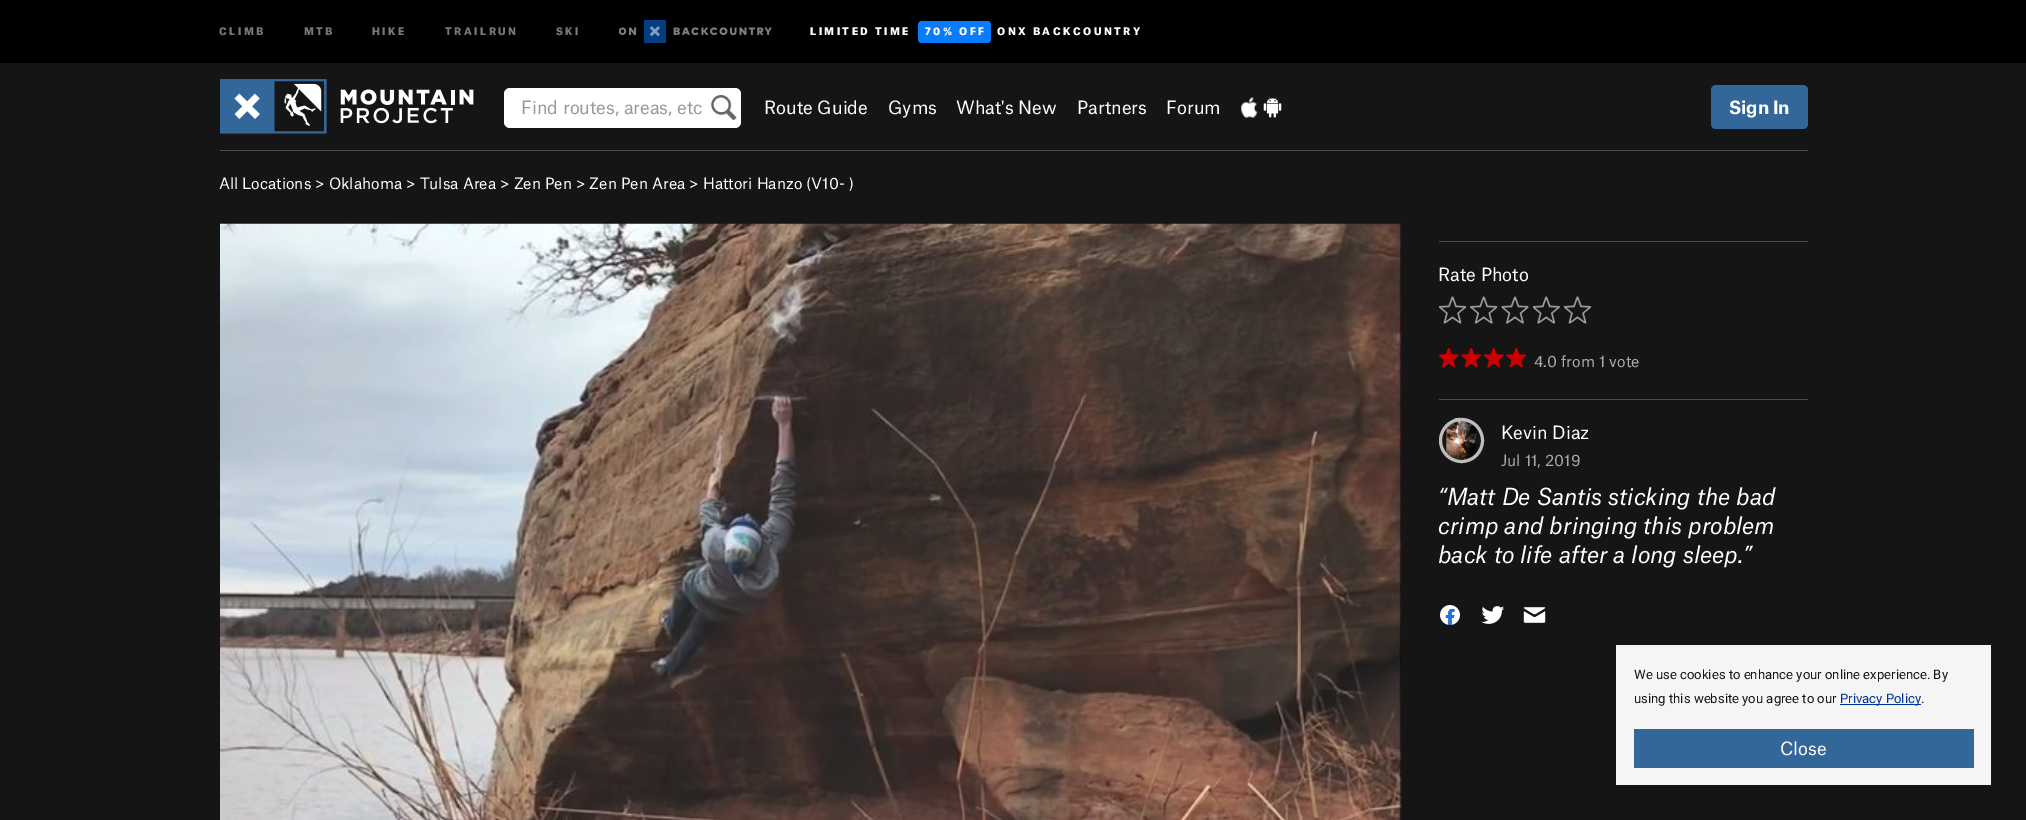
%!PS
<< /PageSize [2026 820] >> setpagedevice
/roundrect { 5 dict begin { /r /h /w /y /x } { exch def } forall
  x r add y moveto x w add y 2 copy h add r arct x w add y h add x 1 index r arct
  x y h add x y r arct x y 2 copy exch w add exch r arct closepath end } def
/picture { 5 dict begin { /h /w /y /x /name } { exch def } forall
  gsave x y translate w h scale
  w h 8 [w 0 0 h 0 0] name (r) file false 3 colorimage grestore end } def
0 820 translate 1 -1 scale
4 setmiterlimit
0.082 setgray
0 0 2026 820 rectfill
0 setgray
0 0 2026 63 rectfill
/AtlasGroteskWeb-Black [10 0 0 -10 0 0] selectfont
0.467 setgray
219 35 moveto 2.5 0 (CLIMB) ashow
304 35 moveto 2.5 0 (MTB) ashow
372 35 moveto 2.5 0 (HIKE) ashow
445 35 moveto 2.5 0 (TRAILRUN) ashow
556 35 moveto 2.5 0 (SKI) ashow
(img1.rgb) 619 20 153 23 picture
1 setgray
810 35 moveto 2.5 0 (LIMITED TIME) ashow
0.031 0.482 1 setrgbcolor
918 21 73 22 4 roundrect fill
1 setgray
925 35 moveto 2.5 0 (70% OFF) ashow
997 35 moveto 2.5 0 (ONX BACKCOUNTRY) ashow
(img2.rgb) 220 79 254 55 picture
504 88 237 40 6 roundrect fill
(img3.rgb) 711 95 26 25 picture
/AtlasGroteskWeb-Regular [17.5 0 0 -17.5 0 0] selectfont
0.6 setgray
521 114 moveto (Find routes, areas, etc) show
1 setgray
764 114 moveto (Route Guide) show
888 114 moveto (Gyms) show
956 114 moveto (What's New) show
1077 114 moveto (Partners) show
1166 114 moveto (Forum) show
(img4.rgb) 1241 97 17 21 picture
(img5.rgb) 1263 97 19 21 picture
0.2 0.404 0.6 setrgbcolor
1711 85 97 44 5 roundrect fill
/AtlasGroteskWeb-Bold [17.5 0 0 -17.5 0 0] selectfont
1 setgray
1729 114 moveto (Sign In) show
0.306 0.302 0.286 setrgbcolor
220 150 1588 1 rectfill
/AtlasGroteskWeb-Regular [15 0 0 -15 0 0] selectfont
1 setgray
219 189 moveto (All Locations > Oklahoma > Tulsa Area > Zen Pen > Zen Pen Area > Hattori Hanzo \(V10- \)) show
(img6.rgb) 220 223 1182 597 picture
0.306 0.302 0.286 setrgbcolor
1439 241 369 1 rectfill
/AtlasGroteskWeb-Regular [17.5 0 0 -17.5 0 0] selectfont
1 setgray
1438 281 moveto (Rate Photo) show
(img7.rgb) 1439 296 27 28 picture
(img8.rgb) 1470 296 28 28 picture
(img9.rgb) 1501 296 28 28 picture
(img10.rgb) 1533 296 27 28 picture
(img7.rgb) 1564 296 27 28 picture
(img11.rgb) 1439 348 20 20 picture
(img12.rgb) 1461 348 20 20 picture
(img11.rgb) 1484 348 20 20 picture
(img12.rgb) 1506 348 20 20 picture
/AtlasGroteskWeb-Regular [15 0 0 -15 0 0] selectfont
0.675 setgray
1534 367 moveto (4.0 from 1 vote) show
0.306 0.302 0.286 setrgbcolor
1439 399 369 1 rectfill
(img13.rgb) 1446 417 31 45 picture
0.741 setgray
3 setlinewidth
newpath 1461.5 440.5 21 0 360 arc closepath stroke
/AtlasGroteskWeb-Regular [17.5 0 0 -17.5 0 0] selectfont
1 setgray
1501 439 moveto (Kevin Diaz) show
/AtlasGroteskWeb-Regular [15 0 0 -15 0 0] selectfont
0.675 setgray
1501 466 moveto (Jul 11, 2019) show
/AtlasGroteskWeb-Italic [22.5 0 0 -22.5 0 0] selectfont
1 setgray
1438 505 moveto (“Matt De Santis sticking the bad) show
1438 534 moveto (crimp and bringing this problem) show
1438 563 moveto (back to life after a long sleep.”) show
(img14.rgb) 1440 605 20 20 picture
(img15.rgb) 1481 606 23 18 picture
(img16.rgb) 1523 607 23 16 picture
0.961 setgray
1616 645 375 140 rectfill
/Roboto-Regular [13.1 0 0 -13.1 0 0] selectfont
0.082 setgray
1634 679 moveto (We use cookies to enhance your online experience. By) show
1634 703 moveto (using this website you agree to our) show
0 0.2 0.6 setrgbcolor
1840 704 81 1 rectfill
1840 703 moveto (Privacy Policy) show
0.082 setgray
1921 703 moveto (.) show
0.2 0.404 0.6 setrgbcolor
1634 729 340 39 rectfill
/AtlasGroteskWeb-Regular [17.5 0 0 -17.5 0 0] selectfont
1 setgray
1780 755 moveto (Close) show
showpage
